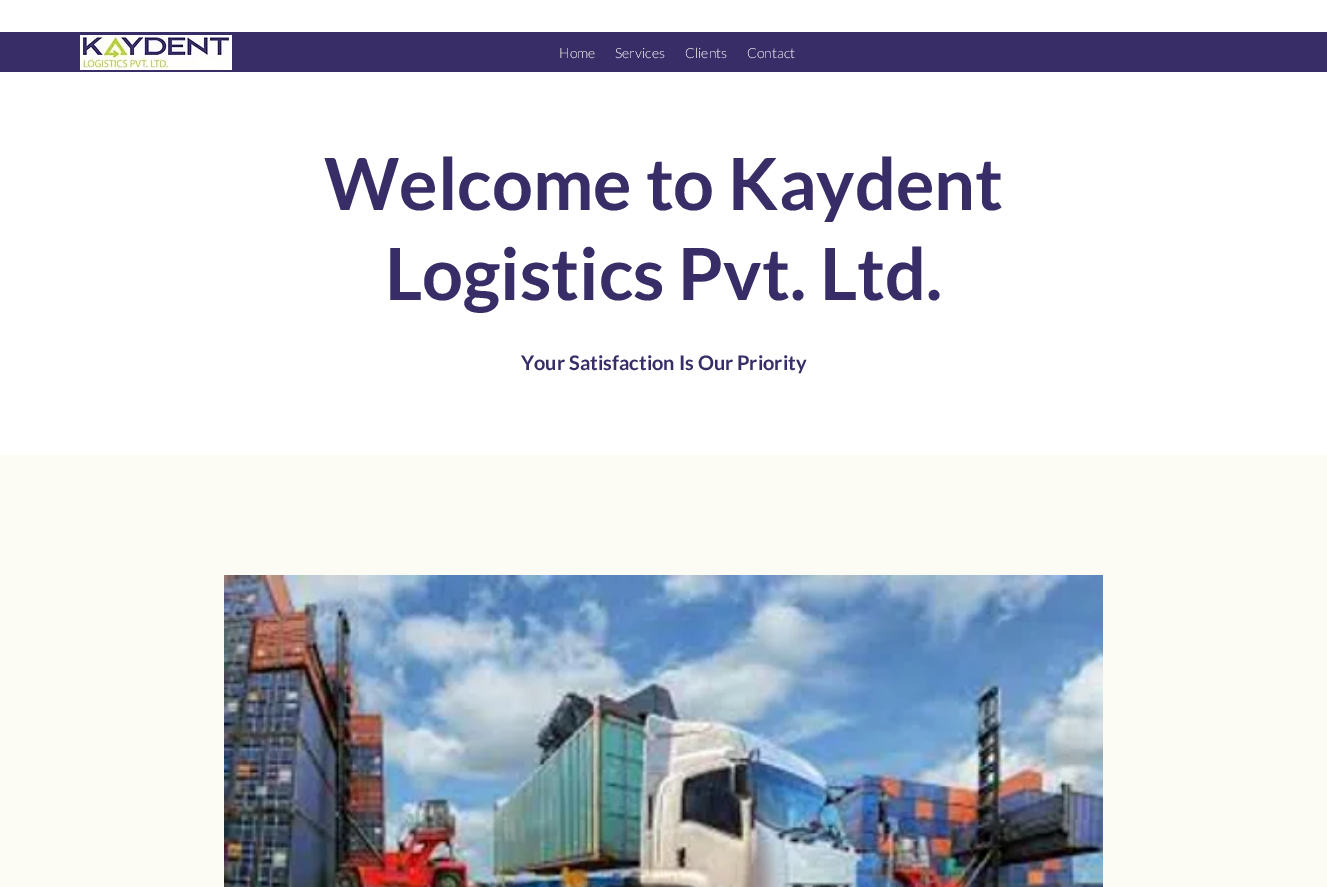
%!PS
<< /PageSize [1327 887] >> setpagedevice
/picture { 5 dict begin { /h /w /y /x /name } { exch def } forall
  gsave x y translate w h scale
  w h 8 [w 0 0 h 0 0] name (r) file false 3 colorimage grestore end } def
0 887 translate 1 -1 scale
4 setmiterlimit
1 setgray
0 0 1327 887 rectfill
0.224 0.176 0.404 setrgbcolor
0 32 1327 40 rectfill
(img1.rgb) 80 35 152 35 picture
/Lato-Light [14 0 0 -14 0 0] selectfont
0.988 0.988 0.957 setrgbcolor
559 58 moveto (Home) show
1 setgray
615 58 moveto (Services) show
685 58 moveto (Clients) show
747 58 moveto (Contact) show
/Lato-Bold [72 0 0 -72 0 0] selectfont
0.224 0.176 0.404 setrgbcolor
324 210 moveto (Welcome to Kaydent) show
385 300 moveto (Logistics Pvt. Ltd.) show
/Lato-Bold [20 0 0 -20 0 0] selectfont
521 370 moveto (Your Satisfaction Is Our Priority) show
0.988 0.988 0.957 setrgbcolor
0 455 1327 432 rectfill
(img2.rgb) 224 575 879 312 picture
showpage
